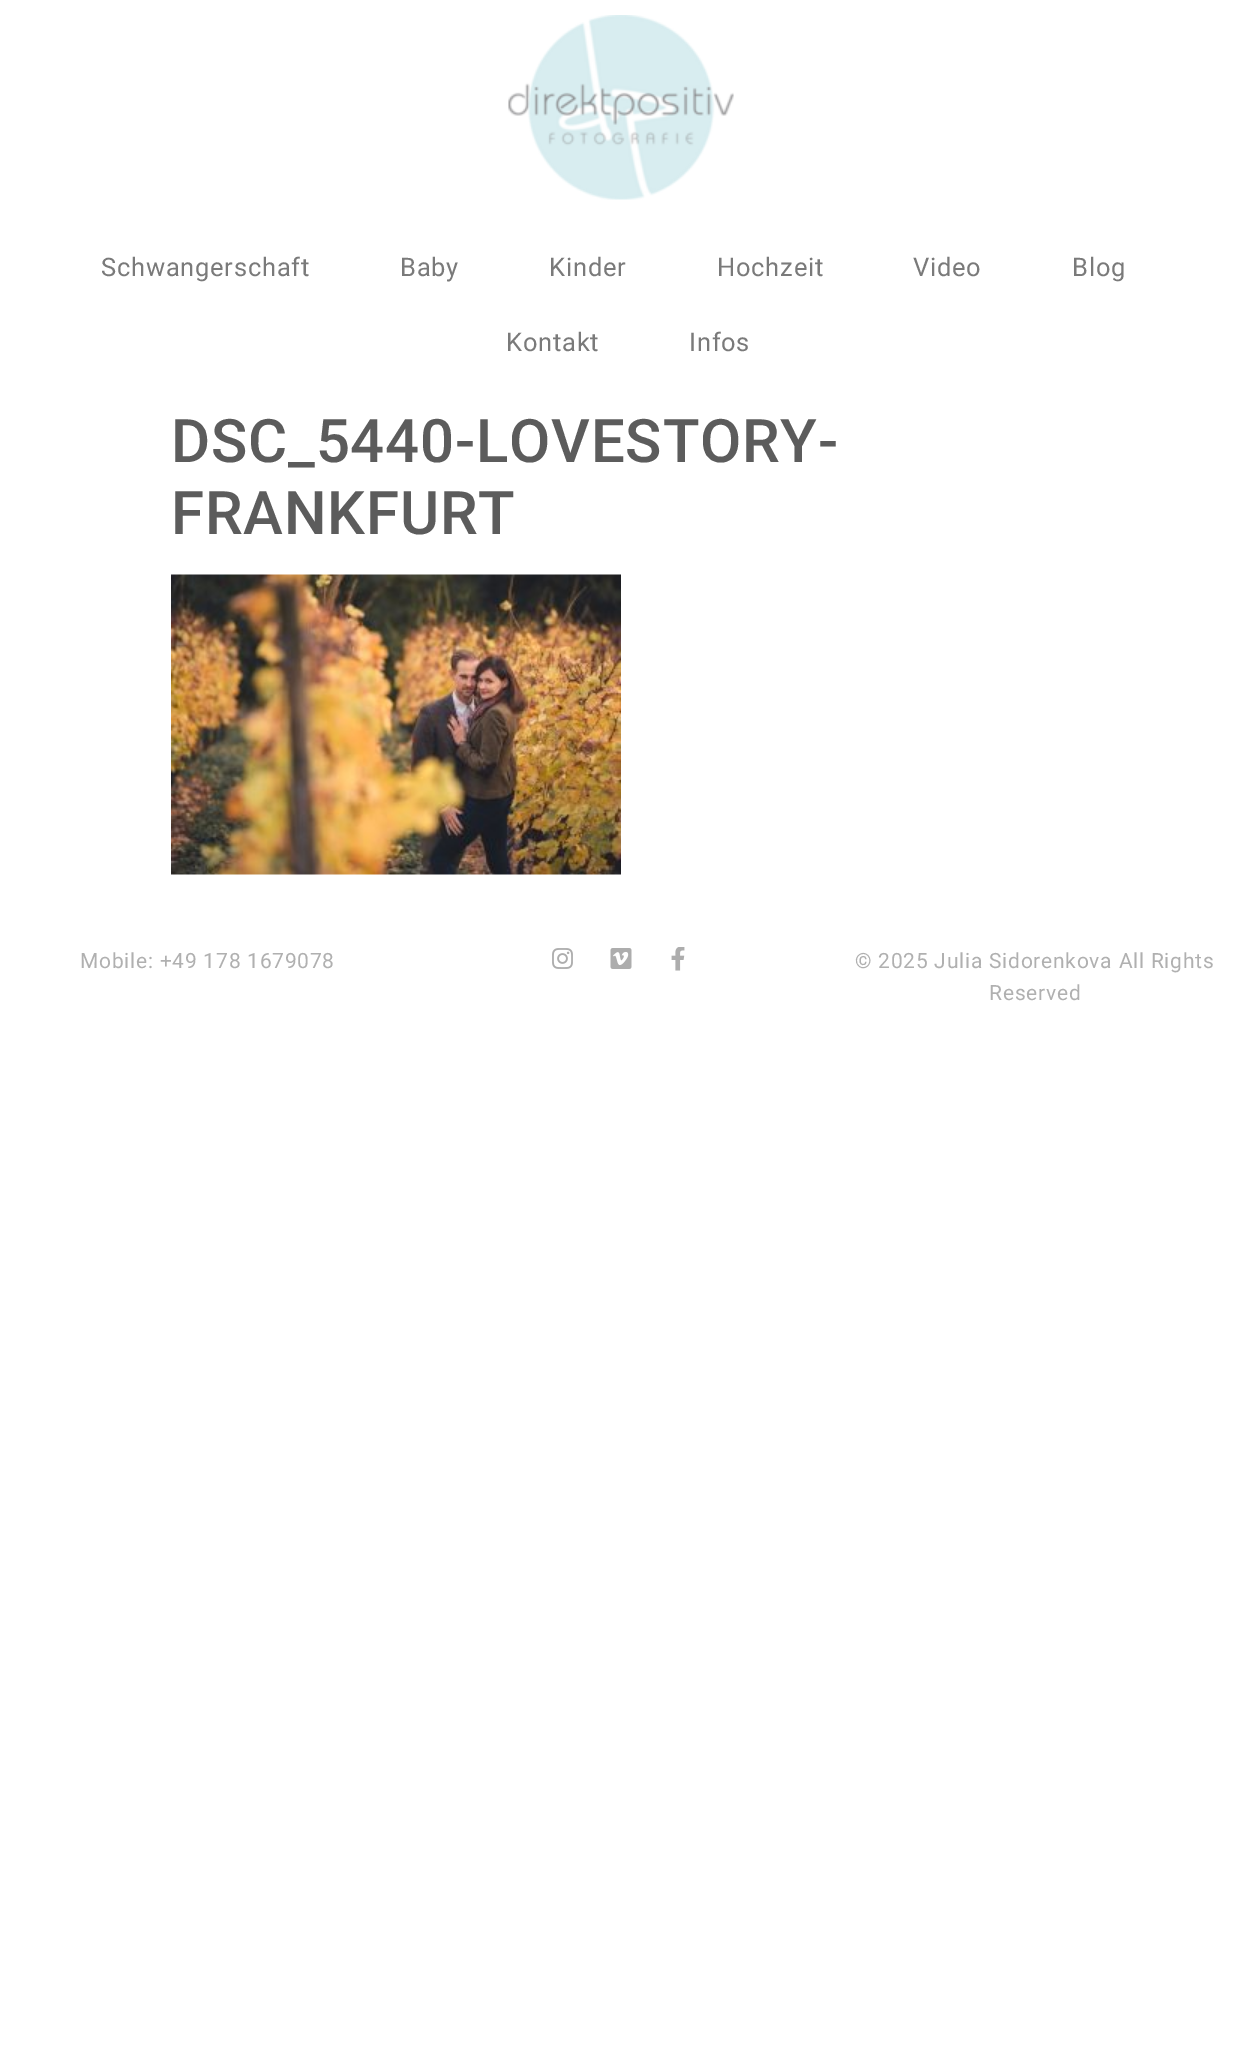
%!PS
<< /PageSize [1242 2068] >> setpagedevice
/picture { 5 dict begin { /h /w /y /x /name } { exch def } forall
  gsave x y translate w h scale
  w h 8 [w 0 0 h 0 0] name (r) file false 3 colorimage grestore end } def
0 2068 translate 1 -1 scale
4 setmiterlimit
1 setgray
0 0 1242 2068 rectfill
(img1.rgb) 508 15 226 185 picture
/Roboto-Regular [25.5 0 0 -25.5 0 0] selectfont
0.478 setgray
101 276 moveto 0.75 0 (Schwangerschaft) ashow
400 276 moveto 0.75 0 (Baby) ashow
549 276 moveto 0.75 0 (Kinder) ashow
717 276 moveto 0.75 0 (Hochzeit) ashow
913 276 moveto 0.75 0 (Video) ashow
1072 276 moveto 0.75 0 (Blog) ashow
506 351 moveto 0.75 0 (Kontakt) ashow
689 351 moveto 0.75 0 (Infos) ashow
/Roboto-Medium [60 0 0 -60 0 0] selectfont
0.361 setgray
171 462 moveto 0.75 0 (DSC_5440-LOVESTORY-) ashow
171 534 moveto 0.75 0 (FRANKFURT) ashow
(img2.rgb) 171 574 450 301 picture
/Roboto-Regular [21 0 0 -21 0 0] selectfont
0.69 setgray
80 968 moveto 0.75 0 (Mobile: +49 178 1679078) ashow
(img3.rgb) 552 948 21 21 picture
(img4.rgb) 610 948 22 21 picture
(img5.rgb) 671 947 14 24 picture
855 968 moveto 0.75 0 (© 2025 Julia Sidorenkova All Rights) ashow
989 1000 moveto 0.75 0 (Reserved) ashow
showpage
